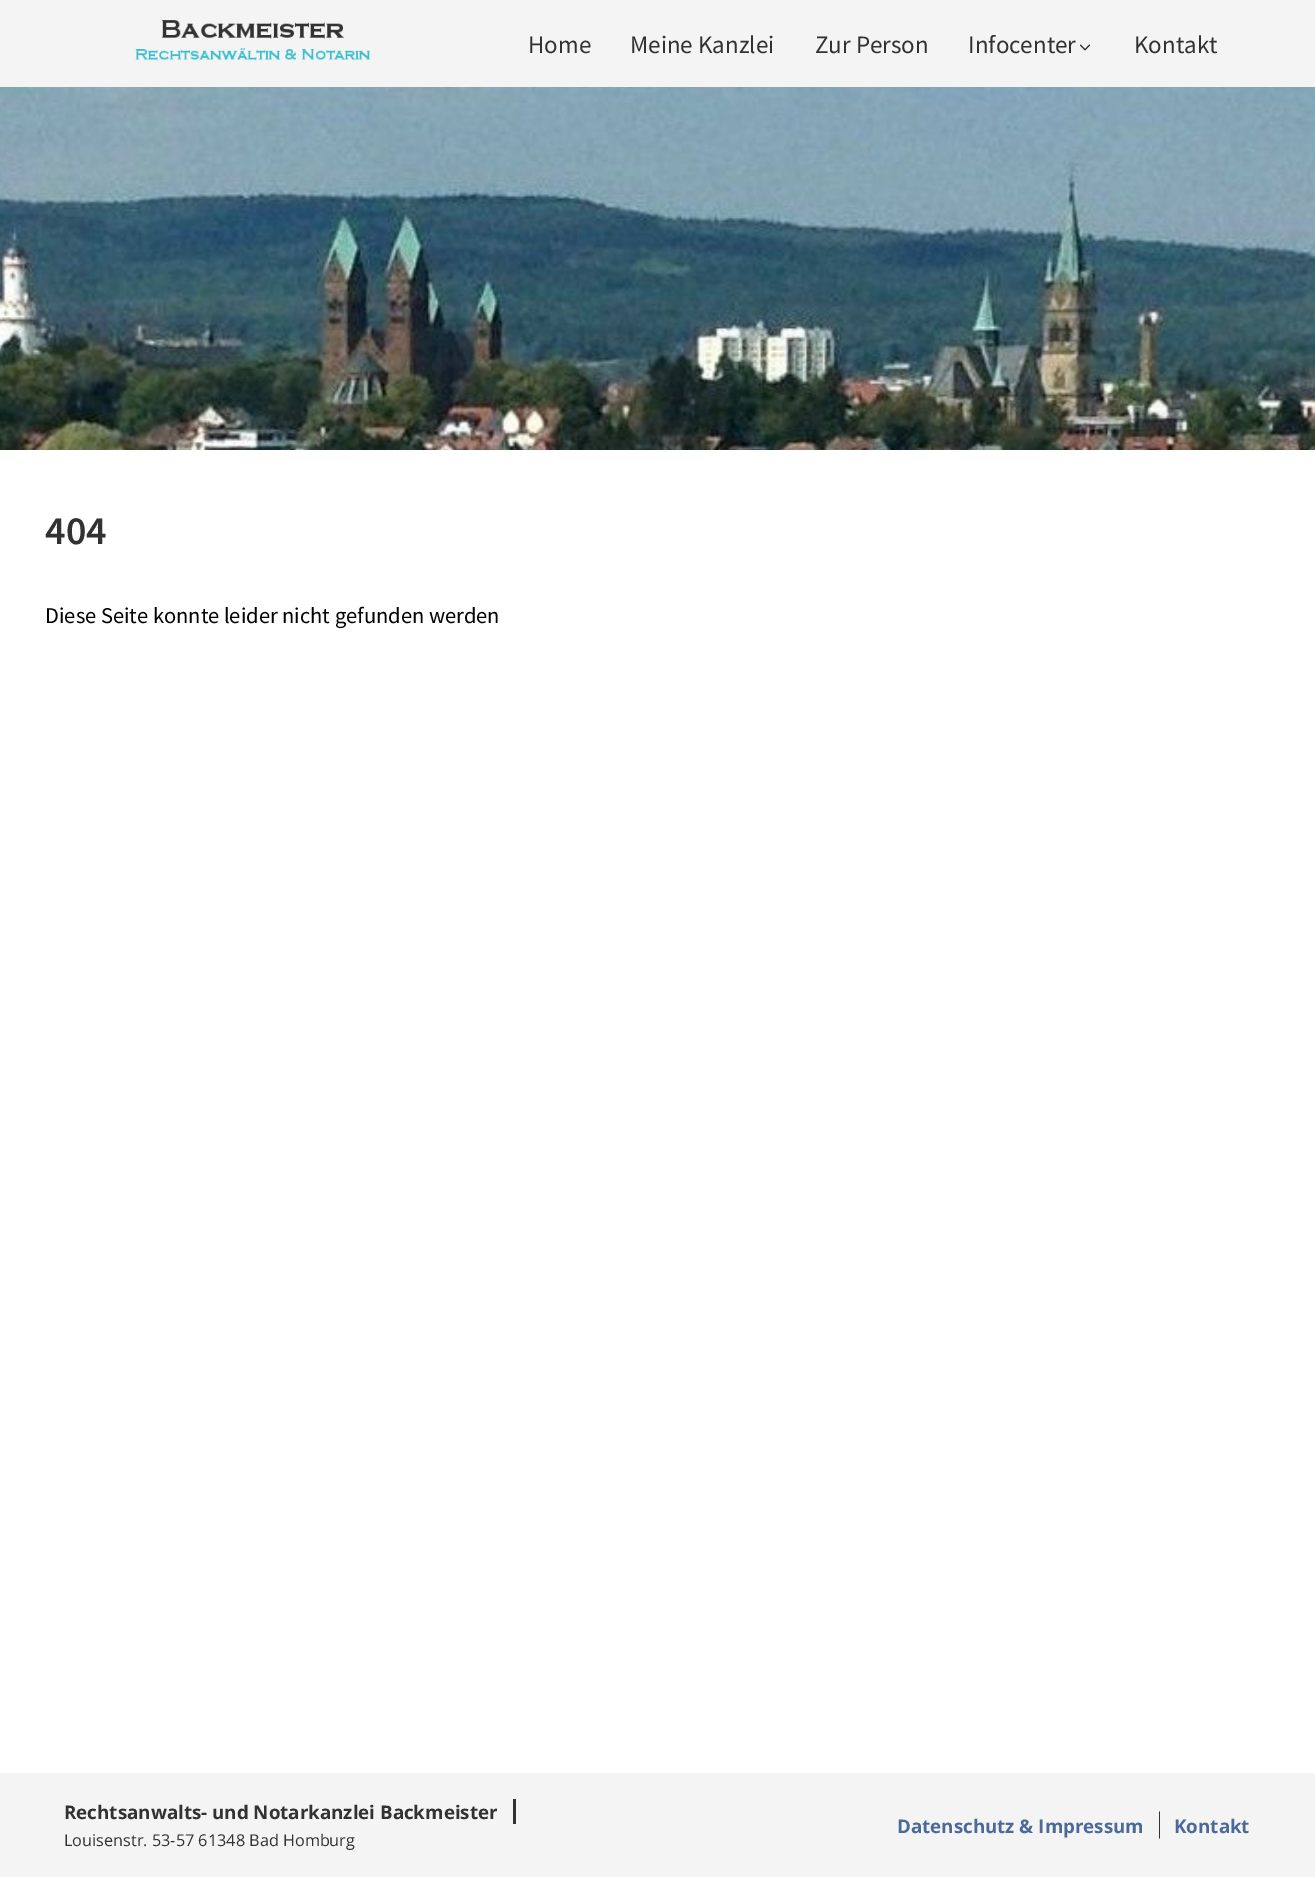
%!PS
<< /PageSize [1315 1877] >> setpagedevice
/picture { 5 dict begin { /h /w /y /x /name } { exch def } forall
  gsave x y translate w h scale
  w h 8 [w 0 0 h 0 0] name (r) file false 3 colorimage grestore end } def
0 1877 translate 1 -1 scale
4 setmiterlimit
1 setgray
0 0 1315 1877 rectfill
0.957 setgray
0 0 1315 87 rectfill
(img1.rgb) 135 20 236 41 picture
/SourceSansPro-Regular [25 0 0 -25 0 0] selectfont
0.196 setgray
528 53 moveto (Home) show
630 53 moveto (Meine Kanzlei) show
815 53 moveto (Zur Person) show
968 53 moveto (Infocenter) show
(img2.rgb) 1080 44 10 7 picture
1134 53 moveto (Kontakt) show
(img3.rgb) 0 87 1315 363 picture
/SourceSansPro-SemiBold [40 0 0 -40 0 0] selectfont
45 544 moveto (404) show
/SourceSansPro-Regular [22.5 0 0 -22.5 0 0] selectfont
0 setgray
45 623 moveto (Diese Seite konnte leider nicht gefunden werden) show
0.957 setgray
0 1773 1315 104 rectfill
0.196 setgray
513 1799 3 25 rectfill
/OpenSans-Bold [18.75 0 0 -18.75 0 0] selectfont
64 1819 moveto (Rechtsanwalts- und Notarkanzlei Backmeister) show
/OpenSans-Regular [16.25 0 0 -16.25 0 0] selectfont
64 1846 moveto (Louisenstr. 53-57 61348 Bad Homburg) show
newpath 1160 1811 moveto 1160 1839 lineto 1159 1837.5 lineto 1159 1812.5 lineto closepath fill
/OpenSans-Bold [18.75 0 0 -18.75 0 0] selectfont
0.294 0.416 0.6 setrgbcolor
897 1833 moveto (Datenschutz & Impressum) show
1174 1833 moveto (Kontakt) show
showpage
